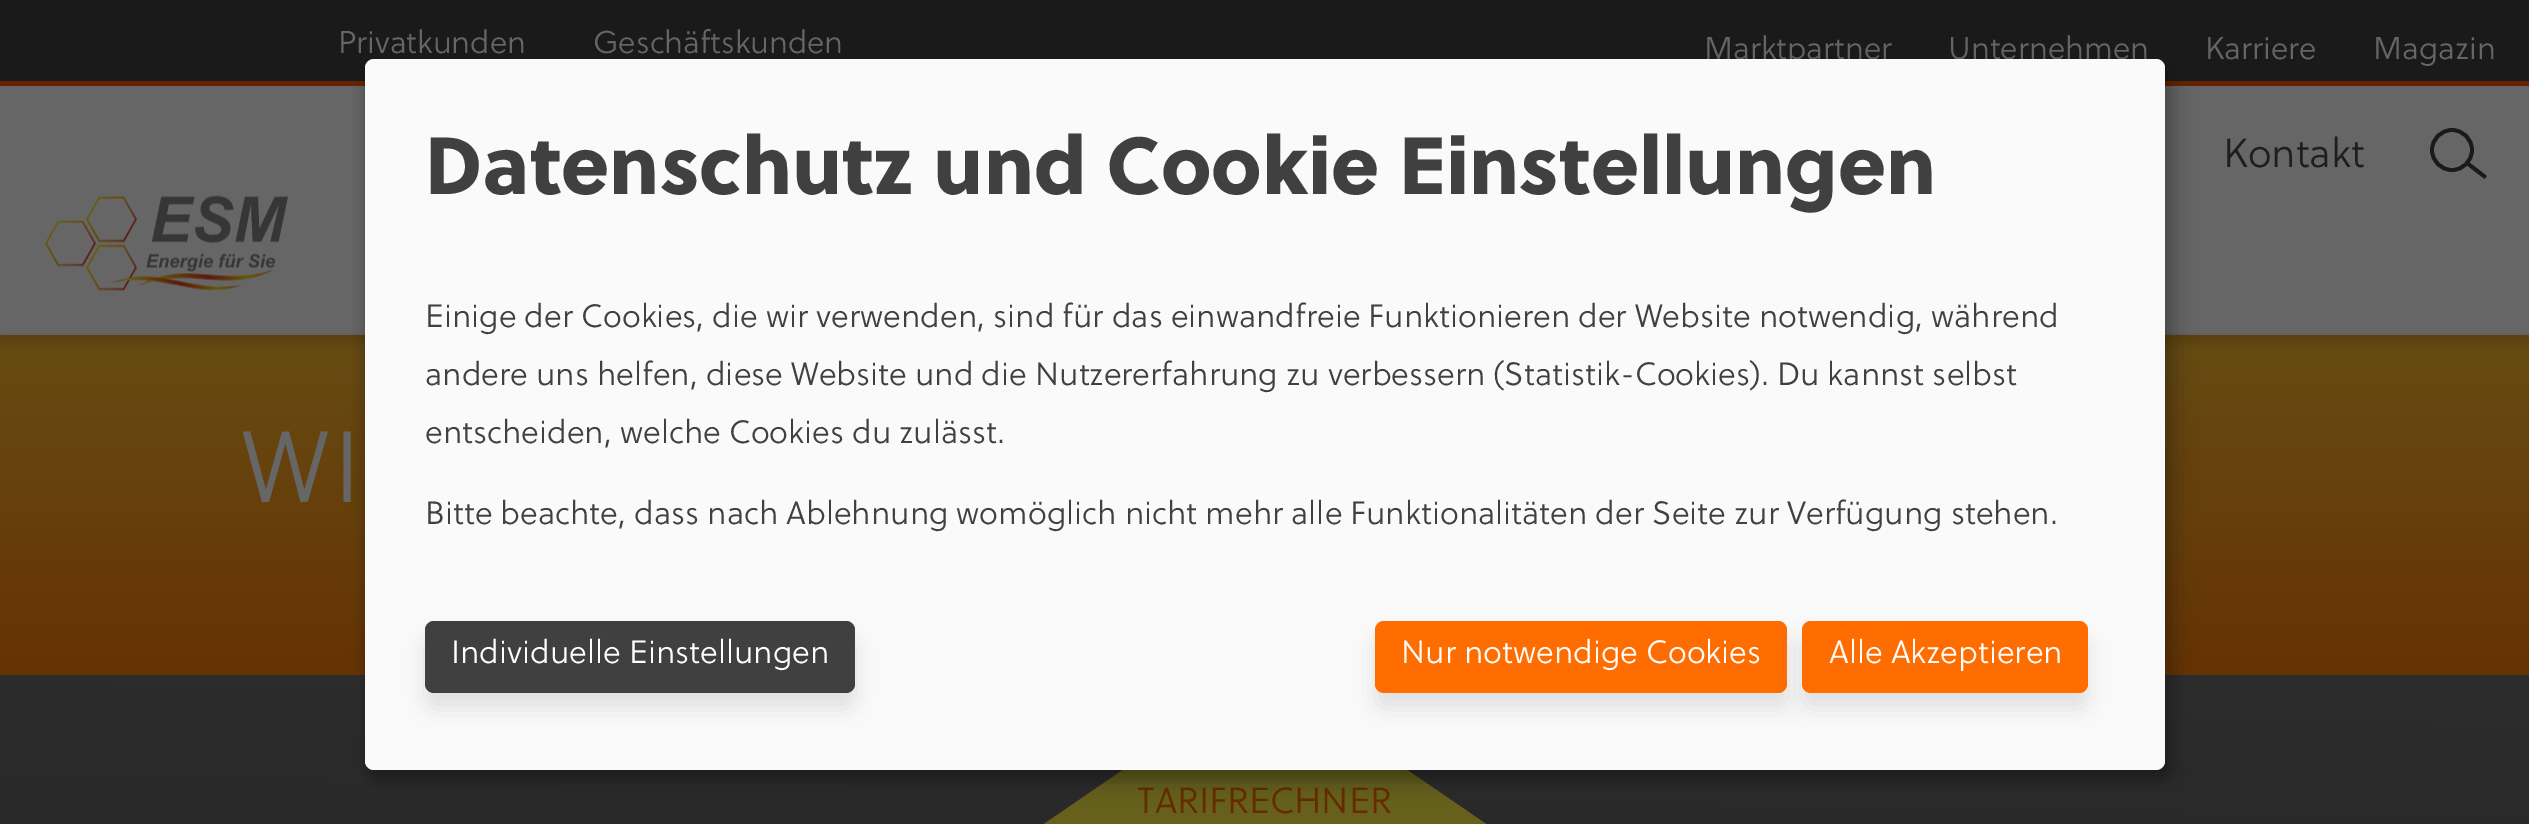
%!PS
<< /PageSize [2529 824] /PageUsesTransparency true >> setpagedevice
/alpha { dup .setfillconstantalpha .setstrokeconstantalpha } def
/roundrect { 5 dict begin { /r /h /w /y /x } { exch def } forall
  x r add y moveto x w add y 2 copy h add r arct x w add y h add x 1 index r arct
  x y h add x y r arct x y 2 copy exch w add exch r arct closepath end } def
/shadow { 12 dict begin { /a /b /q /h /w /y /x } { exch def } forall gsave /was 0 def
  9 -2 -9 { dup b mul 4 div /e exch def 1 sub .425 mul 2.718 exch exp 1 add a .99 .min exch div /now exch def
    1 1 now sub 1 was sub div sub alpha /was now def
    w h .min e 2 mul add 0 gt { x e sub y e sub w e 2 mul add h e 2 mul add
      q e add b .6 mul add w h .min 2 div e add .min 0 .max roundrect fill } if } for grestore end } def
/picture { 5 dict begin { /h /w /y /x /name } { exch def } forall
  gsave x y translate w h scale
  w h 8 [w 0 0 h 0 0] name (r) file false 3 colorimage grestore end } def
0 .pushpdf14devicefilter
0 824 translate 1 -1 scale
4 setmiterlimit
1 setgray
0 0 2529 824 rectfill
0.102 setgray
0 0 2529 81 rectfill
0.4 0.137 0 setrgbcolor
0 81 2529 5 rectfill
/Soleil-Light [31.5 0 0 -31.5 0 0] selectfont
0.4 setgray
338 53 moveto (Privatkunden) show
593 53 moveto (Geschäftskunden) show
1704 59 moveto (Marktpartner) show
1948 59 moveto (Unternehmen) show
2205 59 moveto (Karriere) show
2373 59 moveto (Magazin) show
gsave newpath 0 335 moveto 2529 335 lineto 2529 675 lineto 0 675 lineto closepath clip newpath
<< /ShadingType 2 /ColorSpace /DeviceRGB /Coords [1265 95 1265 758] /Extend [true true] /Function << /FunctionType 2 /Domain [0 1] /C0 [0.4 0.376 0.11] /C1 [0.4 0.169 0] /N 1 >> >> shfill grestore
0 setgray
0 92 2529 250 0 7 0.16 shadow
0.4 setgray
0 86 2529 247 rectfill
0.388 0.384 0.376 setrgbcolor
0 333 2529 2 rectfill
/Soleil-Light [40.5 0 0 -40.5 0 0] selectfont
0.118 setgray
2223 167 moveto (Kontakt) show
0.102 setgray
3.8 setlinewidth
newpath 2452 150 20 0 360 arc closepath stroke
1 setlinecap
newpath 2467 163 moveto 2484.5 176.5 lineto stroke
(img1.rgb) 45 195 243 96 picture
/Soleil-Light [101 0 0 -101 0 0] selectfont
0.4 setgray
242 502 moveto 4 0 (WI) ashow
gsave newpath 0 675 moveto 2529 675 lineto 2529 824 lineto 0 824 lineto closepath clip newpath
<< /ShadingType 2 /ColorSpace /DeviceRGB /Coords [1273 653 1256 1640] /Extend [true true] /Function << /FunctionType 2 /Domain [0 1] /C0 [0.176 0.176 0.176] /C1 [0.102 0.102 0.102] /N 1 >> >> shfill grestore
0.4 0.376 0.11 setrgbcolor
newpath 1289 689 moveto 1508 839 lineto 1022 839 lineto 1241 689 lineto 1254 680 1276 680 1289 689 curveto closepath fill
/Soleil-Light [36.25 0 0 -36.25 0 0] selectfont
0.4 0.169 0 setrgbcolor
1137 813 moveto (TARIFRECHNER) show
0 setgray
376 70 1800 711 9 11 0.19 shadow
365 68 1800 711 9 7 0.2 shadow
0.98 setgray
365 59 1800 711 9 roundrect fill
/Soleil-ExtraBold [80.6 0 0 -80.6 0 0] selectfont
0.251 setgray
425 194 moveto (Datenschutz und Cookie Einstellungen) show
/Soleil-Light [32.25 0 0 -32.25 0 0] selectfont
425 327 moveto (Einige der Cookies, die wir verwenden, sind für das einwandfreie Funktionieren der Website notwendig, während) show
425 385 moveto (andere uns helfen, diese Website und die Nutzererfahrung zu verbessern \(Statistik-Cookies\). Du kannst selbst) show
425 443 moveto (entscheiden, welche Cookies du zulässt.) show
425 524 moveto (Bitte beachte, dass nach Ablehnung womöglich nicht mehr alle Funktionalitäten der Seite zur Verfügung stehen.) show
0 setgray
425 637 430 72 9 11 0.1 shadow
0.251 setgray
425 621 430 72 9 roundrect fill
1 setgray
451 663 moveto (Individuelle Einstellungen) show
0 setgray
1375 637 412 72 9 11 0.1 shadow
1 0.424 0 setrgbcolor
1375 621 412 72 9 roundrect fill
1 setgray
1401 663 moveto (Nur notwendige Cookies) show
0 setgray
1802 637 286 72 9 11 0.1 shadow
1 0.424 0 setrgbcolor
1802 621 286 72 9 roundrect fill
1 setgray
1829 663 moveto (Alle Akzeptieren) show
.poppdf14devicefilter showpage
